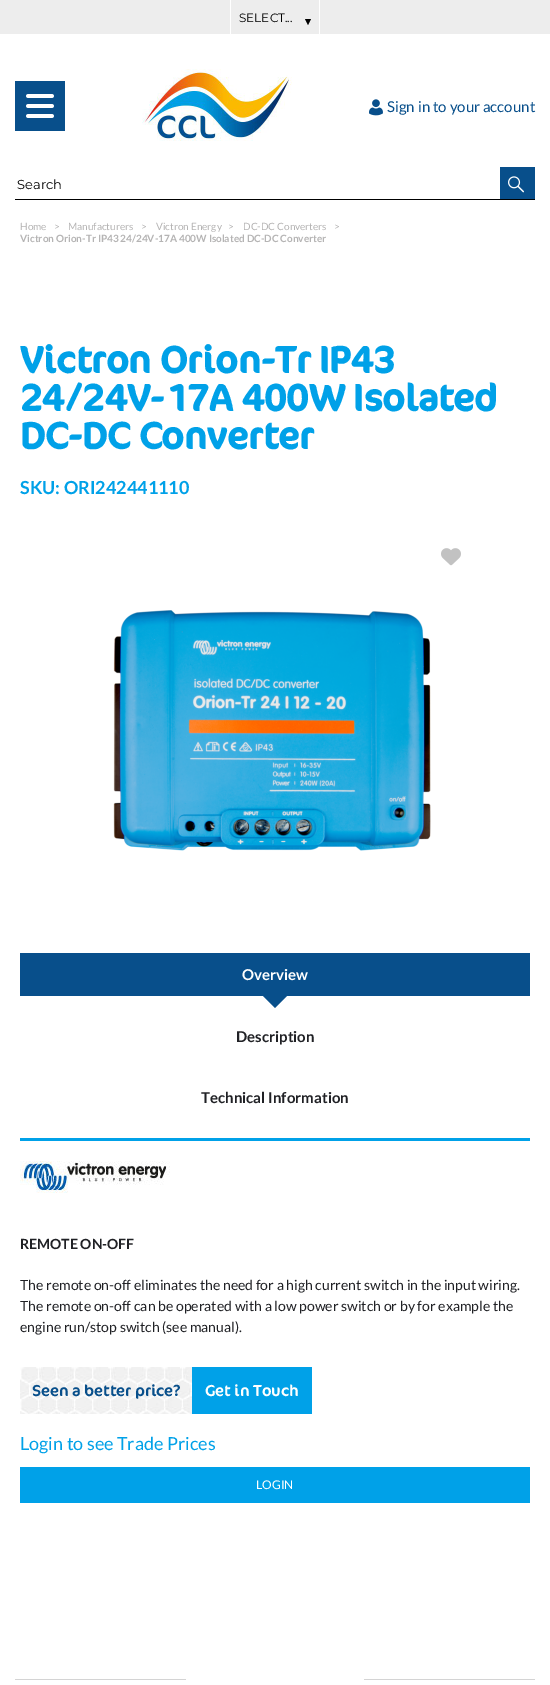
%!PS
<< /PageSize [550 1685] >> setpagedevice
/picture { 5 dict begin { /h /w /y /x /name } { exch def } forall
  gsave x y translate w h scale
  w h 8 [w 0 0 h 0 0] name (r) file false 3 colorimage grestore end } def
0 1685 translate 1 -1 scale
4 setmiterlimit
1 setgray
0 0 550 1685 rectfill
0.929 setgray
0 0 550 34 rectfill
1 setgray
319 0 1 34 rectfill
230 0 1 34 rectfill
/Montserrat-Regular [12 0 0 -12 0 0] selectfont
0 setgray
239 22 moveto (SELECT...) show
newpath 305 19 moveto 311 19 lineto 308 25 lineto closepath fill
0.031 0.31 0.545 setrgbcolor
15 81 50 50 rectfill
(img1.rgb) 26 94 28 24 picture
(img2.rgb) 142 69 150 72 picture
(img3.rgb) 369 99 14 17 picture
/Lato-Regular [15 0 0 -15 0 0] selectfont
387 112 moveto (Sign in to your account) show
0 setgray
15 199 520 1 rectfill
/Montserrat-Regular [13 0 0 -13 0 0] selectfont
17 189 moveto (Search) show
0.031 0.31 0.545 setrgbcolor
500 167 35 32 rectfill
(img4.rgb) 508 176 16 17 picture
/Lato-Regular [10 0 0 -10 0 0] selectfont
0.71 0.706 0.706 setrgbcolor
20 230 moveto (Home) show
54 230 moveto (>) show
68 230 moveto (Manufacturers) show
141 230 moveto (>) show
156 230 moveto (Victron Energy) show
228 230 moveto (>) show
243 230 moveto (DC-DC Converters) show
334 230 moveto (>) show
/Lato-Bold [10 0 0 -10 0 0] selectfont
20 242 moveto (Victron Orion-Tr IP43 24/24V-17A 400W Isolated DC-DC Converter) show
/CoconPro-Bold [38 0 0 -38 0 0] selectfont
0 0.631 0.91 setrgbcolor
20 373 moveto (Victron Orion-Tr IP43) show
20 411 moveto (24/24V-17A 400W Isolated) show
20 449 moveto (DC-DC Converter) show
/Lato-Bold [18 0 0 -18 0 0] selectfont
20 494 moveto (SKU: ORI242441110) show
(img5.rgb) 441 548 20 18 picture
(img6.rgb) 113 610 318 241 picture
20 1138 510 3 rectfill
0.031 0.31 0.545 setrgbcolor
20 953 510 43 rectfill
/Lato-Bold [15 0 0 -15 0 0] selectfont
1 setgray
242 980 moveto (Overview) show
0.031 0.31 0.545 setrgbcolor
newpath 260 993 moveto 290 993 lineto 275 1008 lineto closepath fill
0.125 0.129 0.145 setrgbcolor
236 1042 moveto (Description) show
201 1103 moveto (Technical Information) show
(img7.rgb) 20 1161 150 32 picture
/Lato-Bold [14 0 0 -14 0 0] selectfont
20 1249 moveto (REMOTE ON-OFF) show
/Lato-Regular [14 0 0 -14 0 0] selectfont
20 1290 moveto (The remote on-off eliminates the need for a high current switch in the input wiring.) show
20 1311 moveto (The remote on-off can be operated with a low power switch or by for example the) show
20 1332 moveto (engine run/stop switch \(see manual\).) show
(img8.rgb) 20 1367 172 47 picture
/CoconPro-Regular [16 0 0 -16 0 0] selectfont
0.031 0.31 0.545 setrgbcolor
32 1396 moveto (Seen a better price?) show
0 0.631 0.91 setrgbcolor
192 1367 120 47 rectfill
1 setgray
205 1396 moveto (Get in Touch) show
/Lato-Regular [18 0 0 -18 0 0] selectfont
0 0.631 0.91 setrgbcolor
20 1450 moveto (Login to see Trade Prices) show
20 1467 510 36 rectfill
/Lato-Regular [12 0 0 -12 0 0] selectfont
1 setgray
256 1489 moveto (LOGIN) show
0.831 setgray
15 1679 520 1 rectfill
1 setgray
186 1679 178 1 rectfill
showpage
